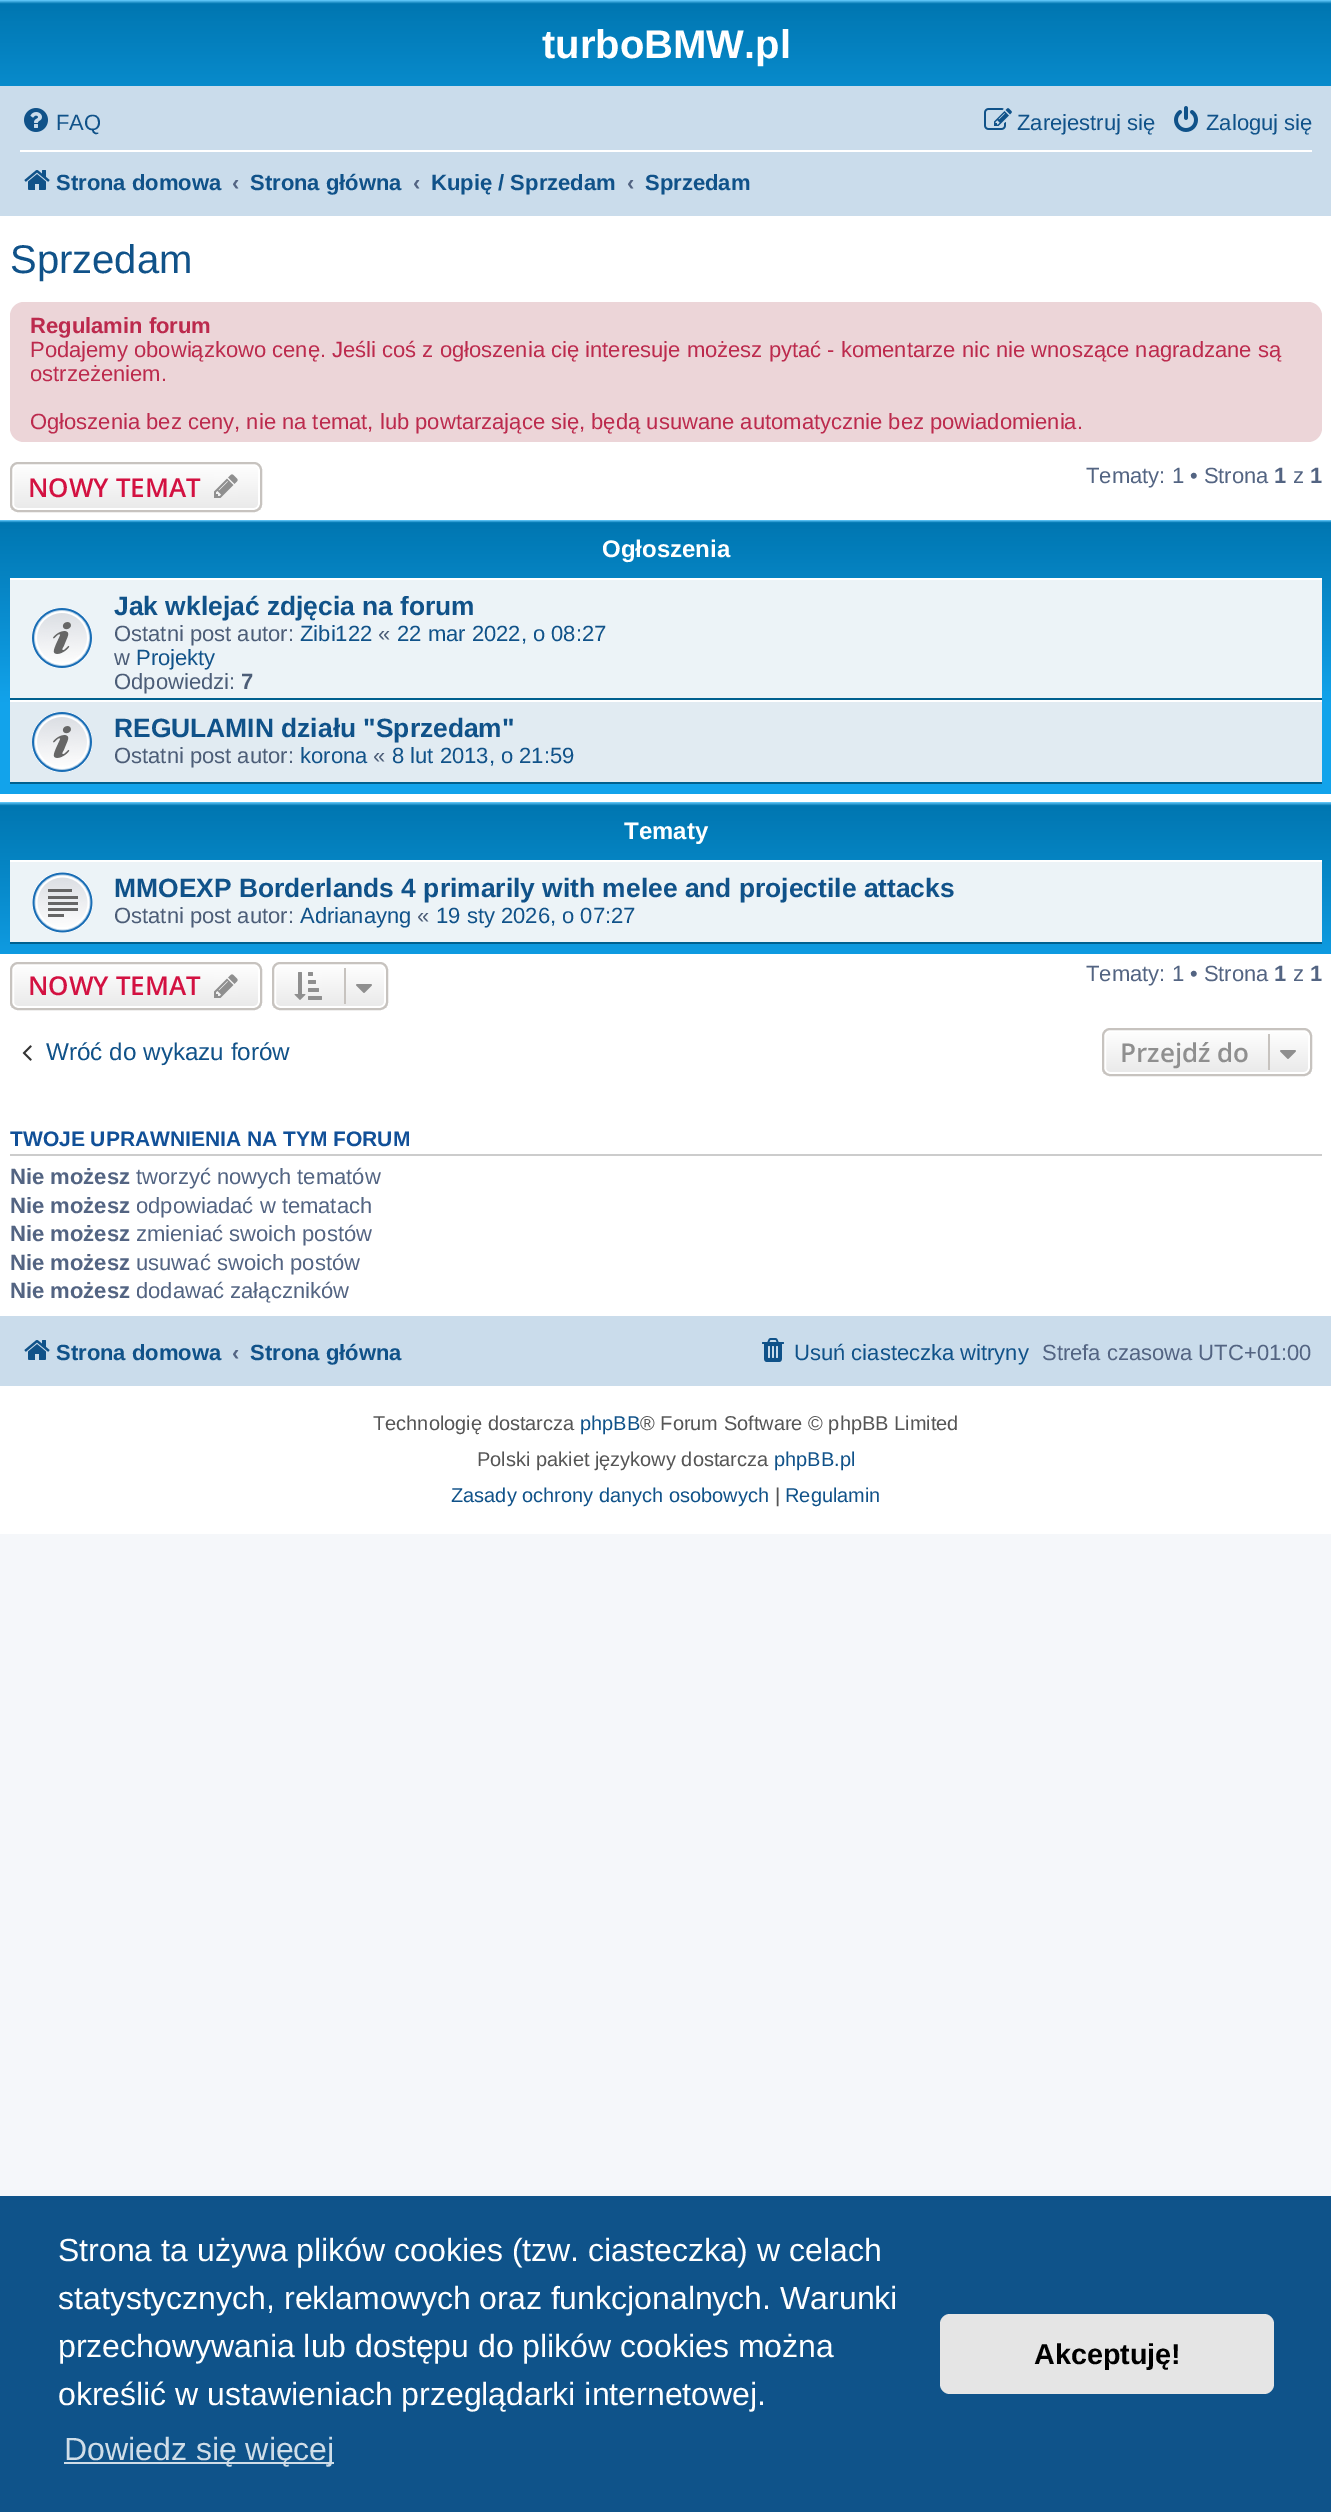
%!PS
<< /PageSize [1331 2512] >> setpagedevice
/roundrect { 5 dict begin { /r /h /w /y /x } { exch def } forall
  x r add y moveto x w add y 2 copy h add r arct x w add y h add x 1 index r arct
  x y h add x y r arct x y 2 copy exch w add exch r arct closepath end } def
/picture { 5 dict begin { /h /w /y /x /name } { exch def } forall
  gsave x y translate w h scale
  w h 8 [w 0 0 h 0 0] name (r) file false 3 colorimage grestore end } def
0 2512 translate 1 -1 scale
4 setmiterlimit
0.961 0.969 0.98 setrgbcolor
0 0 1331 2512 rectfill
1 setgray
0 216 1331 1318 rectfill
gsave newpath 0 0 moveto 1331 0 lineto 1331 86 lineto 0 86 lineto closepath clip newpath
<< /ShadingType 2 /ColorSpace /DeviceRGB /Coords [666 0 666 184] /Extend [true true] /Function << /FunctionType 3 /Domain [0 1] /Functions [<< /FunctionType 2 /Domain [0 1] /C0 [0.416 0.808 1] /C1 [0 0.463 0.694] /N 1 >> << /FunctionType 2 /Domain [0 1] /C0 [0 0.463 0.694] /C1 [0.071 0.639 0.922] /N 1 >>] /Bounds [0.02] /Encode [0 1 0 1] >> >> shfill grestore
/LiberationSans-Bold [40 0 0 -40 0 0] selectfont
542 58 moveto (turboBMW.pl) show
0.792 0.863 0.922 setrgbcolor
0 86 1331 130 rectfill
(img1.rgb) 24 108 24 24 picture
/LiberationSans-Regular [22 0 0 -22 0 0] selectfont
0.063 0.322 0.537 setrgbcolor
56 130 moveto (FAQ) show
(img2.rgb) 984 108 28 22 picture
1017 130 moveto (Zarejestruj się) show
(img3.rgb) 1174 106 24 26 picture
1206 130 moveto (Zaloguj się) show
1 setgray
20 150 1292 2 rectfill
(img4.rgb) 24 170 26 20 picture
/LiberationSans-Bold [22 0 0 -22 0 0] selectfont
0.063 0.322 0.537 setrgbcolor
56 190 moveto (Strona domowa) show
0.325 0.392 0.51 setrgbcolor
232 190 moveto (‹) show
0.063 0.322 0.537 setrgbcolor
250 190 moveto (Strona główna) show
0.325 0.392 0.51 setrgbcolor
413 190 moveto (‹) show
0.063 0.322 0.537 setrgbcolor
431 190 moveto (Kupię / Sprzedam) show
0.325 0.392 0.51 setrgbcolor
627 190 moveto (‹) show
0.063 0.322 0.537 setrgbcolor
645 190 moveto (Sprzedam) show
/LiberationSans-Regular [40 0 0 -40 0 0] selectfont
10 273 moveto (Sprzedam) show
0.925 0.835 0.847 setrgbcolor
10 302 1312 140 14 roundrect fill
/LiberationSans-Bold [22 0 0 -22 0 0] selectfont
0.737 0.165 0.302 setrgbcolor
30 333 moveto (Regulamin forum) show
/LiberationSans-Regular [22 0 0 -22 0 0] selectfont
30 357 moveto (Podajemy obowiązkowo cenę. Jeśli coś z ogłoszenia cię interesuje możesz pytać - komentarze nic nie wnoszące nagradzane są) show
30 381 moveto (ostrzeżeniem.) show
30 429 moveto (Ogłoszenia bez ceny, nie na temat, lub powtarzające się, będą usuwane automatycznie bez powiadomienia.) show
gsave
10 462 252 50 8 roundrect clip newpath
gsave newpath 10 464 moveto 262 464 lineto 262 510 lineto 10 510 lineto closepath clip newpath
<< /ShadingType 2 /ColorSpace /DeviceRGB /Coords [136 464 136 510] /Extend [true true] /Function << /FunctionType 2 /Domain [0 1] /C0 [1 1 1] /C1 [0.914 0.914 0.914] /N 1 >> >> shfill grestore
grestore
1 setgray
2 setlinewidth
13 465 246 44 5 roundrect stroke
0.78 0.765 0.749 setrgbcolor
11 463 250 48 7 roundrect stroke
/OpenSans-SemiBold [26 0 0 -26 0 0] selectfont
0.827 0.067 0.255 setrgbcolor
28 497 moveto (NOWY TEMAT) show
(img5.rgb) 214 474 24 24 picture
/LiberationSans-Regular [22 0 0 -22 0 0] selectfont
0.325 0.392 0.51 setrgbcolor
1086 483 moveto (Tematy: 1 • Strona) show
/LiberationSans-Bold [22 0 0 -22 0 0] selectfont
1274 483 moveto (1) show
/LiberationSans-Regular [22 0 0 -22 0 0] selectfont
1293 483 moveto (z) show
/LiberationSans-Bold [22 0 0 -22 0 0] selectfont
1310 483 moveto (1) show
gsave newpath 0 520 moveto 1331 520 lineto 1331 794 lineto 0 794 lineto closepath clip newpath
<< /ShadingType 2 /ColorSpace /DeviceRGB /Coords [666 520 666 794] /Extend [true true] /Function << /FunctionType 3 /Domain [0 1] /Functions [<< /FunctionType 2 /Domain [0 1] /C0 [0.416 0.808 1] /C1 [0 0.463 0.694] /N 1 >> << /FunctionType 2 /Domain [0 1] /C0 [0 0.463 0.694] /C1 [0.071 0.639 0.922] /N 1 >> << /FunctionType 2 /Domain [0 1] /C0 [0.071 0.639 0.922] /C1 [0.071 0.639 0.922] /N 1 >>] /Bounds [0.01 0.67] /Encode [0 1 0 1 0 1] >> >> shfill grestore
/LiberationSans-Bold [24 0 0 -24 0 0] selectfont
1 setgray
602 557 moveto (Ogłoszenia) show
0.925 0.953 0.969 setrgbcolor
10 580 1312 118 rectfill
1 setgray
10 578 1312 2 rectfill
0 0.376 0.561 setrgbcolor
10 698 1312 2 rectfill
(img6.rgb) 32 608 60 60 picture
/LiberationSans-Bold [26.4 0 0 -26.4 0 0] selectfont
0.063 0.322 0.537 setrgbcolor
114 615 moveto (Jak wklejać zdjęcia na forum) show
/LiberationSans-Regular [22 0 0 -22 0 0] selectfont
0.298 0.365 0.467 setrgbcolor
114 641 moveto (Ostatni post autor:) show
0.063 0.322 0.537 setrgbcolor
300 641 moveto (Zibi122) show
0.298 0.365 0.467 setrgbcolor
378 641 moveto («) show
0.063 0.322 0.537 setrgbcolor
397 641 moveto (22 mar 2022, o 08:27) show
0.298 0.365 0.467 setrgbcolor
114 665 moveto (w) show
0.063 0.322 0.537 setrgbcolor
136 665 moveto (Projekty) show
0.298 0.365 0.467 setrgbcolor
114 689 moveto (Odpowiedzi:) show
/LiberationSans-Bold [22 0 0 -22 0 0] selectfont
241 689 moveto (7) show
0.882 0.922 0.949 setrgbcolor
10 702 1312 80 rectfill
1 setgray
10 700 1312 2 rectfill
0 0.376 0.561 setrgbcolor
10 782 1312 2 rectfill
(img7.rgb) 32 712 60 60 picture
/LiberationSans-Bold [26.4 0 0 -26.4 0 0] selectfont
0.063 0.322 0.537 setrgbcolor
114 737 moveto (REGULAMIN działu "Sprzedam") show
/LiberationSans-Regular [22 0 0 -22 0 0] selectfont
0.298 0.365 0.467 setrgbcolor
114 763 moveto (Ostatni post autor:) show
0.063 0.322 0.537 setrgbcolor
300 763 moveto (korona) show
0.298 0.365 0.467 setrgbcolor
373 763 moveto («) show
0.063 0.322 0.537 setrgbcolor
392 763 moveto (8 lut 2013, o 21:59) show
gsave newpath 0 802 moveto 1331 802 lineto 1331 954 lineto 0 954 lineto closepath clip newpath
<< /ShadingType 2 /ColorSpace /DeviceRGB /Coords [666 802 666 986] /Extend [true true] /Function << /FunctionType 3 /Domain [0 1] /Functions [<< /FunctionType 2 /Domain [0 1] /C0 [0.416 0.808 1] /C1 [0 0.463 0.694] /N 1 >> << /FunctionType 2 /Domain [0 1] /C0 [0 0.463 0.694] /C1 [0.071 0.639 0.922] /N 1 >>] /Bounds [0.02] /Encode [0 1 0 1] >> >> shfill grestore
/LiberationSans-Bold [24 0 0 -24 0 0] selectfont
1 setgray
624 839 moveto (Tematy) show
0.925 0.953 0.969 setrgbcolor
10 862 1312 80 rectfill
1 setgray
10 860 1312 2 rectfill
0 0.376 0.561 setrgbcolor
10 942 1312 2 rectfill
(img8.rgb) 32 872 61 61 picture
/LiberationSans-Bold [26.4 0 0 -26.4 0 0] selectfont
0.063 0.322 0.537 setrgbcolor
114 897 moveto (MMOEXP Borderlands 4 primarily with melee and projectile attacks) show
/LiberationSans-Regular [22 0 0 -22 0 0] selectfont
0.298 0.365 0.467 setrgbcolor
114 923 moveto (Ostatni post autor:) show
0.063 0.322 0.537 setrgbcolor
300 923 moveto (Adrianayng) show
0.298 0.365 0.467 setrgbcolor
417 923 moveto («) show
0.063 0.322 0.537 setrgbcolor
436 923 moveto (19 sty 2026, o 07:27) show
gsave
10 962 252 48 8 roundrect clip newpath
gsave newpath 10 964 moveto 262 964 lineto 262 1008 lineto 10 1008 lineto closepath clip newpath
<< /ShadingType 2 /ColorSpace /DeviceRGB /Coords [136 964 136 1008] /Extend [true true] /Function << /FunctionType 2 /Domain [0 1] /C0 [1 1 1] /C1 [0.914 0.914 0.914] /N 1 >> >> shfill grestore
grestore
1 setgray
13 965 246 42 5 roundrect stroke
0.78 0.765 0.749 setrgbcolor
11 963 250 46 7 roundrect stroke
/OpenSans-SemiBold [26 0 0 -26 0 0] selectfont
0.827 0.067 0.255 setrgbcolor
28 995 moveto (NOWY TEMAT) show
(img9.rgb) 214 974 24 24 picture
gsave
272 962 116 48 8 roundrect clip newpath
gsave newpath 272 964 moveto 388 964 lineto 388 1008 lineto 272 1008 lineto closepath clip newpath
<< /ShadingType 2 /ColorSpace /DeviceRGB /Coords [330 964 330 1008] /Extend [true true] /Function << /FunctionType 2 /Domain [0 1] /C0 [1 1 1] /C1 [0.914 0.914 0.914] /N 1 >> >> shfill grestore
grestore
1 setgray
275 965 110 42 5 roundrect stroke
0.78 0.765 0.749 setrgbcolor
273 963 114 46 7 roundrect stroke
(img10.rgb) 294 972 28 28 picture
344 968 2 36 rectfill
(img11.rgb) 356 984 16 9 picture
/LiberationSans-Regular [22 0 0 -22 0 0] selectfont
0.325 0.392 0.51 setrgbcolor
1086 981 moveto (Tematy: 1 • Strona) show
/LiberationSans-Bold [22 0 0 -22 0 0] selectfont
1274 981 moveto (1) show
/LiberationSans-Regular [22 0 0 -22 0 0] selectfont
1293 981 moveto (z) show
/LiberationSans-Bold [22 0 0 -22 0 0] selectfont
1310 981 moveto (1) show
(img12.rgb) 22 1045 10 16 picture
/LiberationSans-Regular [24.25 0 0 -24.25 0 0] selectfont
0.063 0.322 0.537 setrgbcolor
46 1060 moveto (Wróć do wykazu forów) show
gsave
1102 1028 210 48 8 roundrect clip newpath
gsave newpath 1102 1030 moveto 1312 1030 lineto 1312 1074 lineto 1102 1074 lineto closepath clip newpath
<< /ShadingType 2 /ColorSpace /DeviceRGB /Coords [1207 1030 1207 1074] /Extend [true true] /Function << /FunctionType 2 /Domain [0 1] /C0 [1 1 1] /C1 [0.914 0.914 0.914] /N 1 >> >> shfill grestore
grestore
1 setgray
1105 1031 204 42 5 roundrect stroke
0.78 0.765 0.749 setrgbcolor
1103 1029 208 46 7 roundrect stroke
/OpenSans-SemiBold [26 0 0 -26 0 0] selectfont
0.561 setgray
1120 1062 moveto (Przejdź do) show
0.78 0.765 0.749 setrgbcolor
1268 1034 2 36 rectfill
(img11.rgb) 1280 1050 16 9 picture
0.8 setgray
10 1154 1312 2 rectfill
/LiberationSans-Bold [21 0 0 -21 0 0] selectfont
0.067 0.314 0.596 setrgbcolor
10 1146 moveto (TWOJE UPRAWNIENIA NA TYM FORUM) show
/LiberationSans-Bold [22 0 0 -22 0 0] selectfont
0.325 0.392 0.51 setrgbcolor
10 1184 moveto (Nie możesz) show
/LiberationSans-Regular [22 0 0 -22 0 0] selectfont
136 1184 moveto (tworzyć nowych tematów) show
/LiberationSans-Bold [22 0 0 -22 0 0] selectfont
10 1213 moveto (Nie możesz) show
/LiberationSans-Regular [22 0 0 -22 0 0] selectfont
136 1213 moveto (odpowiadać w tematach) show
/LiberationSans-Bold [22 0 0 -22 0 0] selectfont
10 1241 moveto (Nie możesz) show
/LiberationSans-Regular [22 0 0 -22 0 0] selectfont
136 1241 moveto (zmieniać swoich postów) show
/LiberationSans-Bold [22 0 0 -22 0 0] selectfont
10 1270 moveto (Nie możesz) show
/LiberationSans-Regular [22 0 0 -22 0 0] selectfont
136 1270 moveto (usuwać swoich postów) show
/LiberationSans-Bold [22 0 0 -22 0 0] selectfont
10 1298 moveto (Nie możesz) show
/LiberationSans-Regular [22 0 0 -22 0 0] selectfont
136 1298 moveto (dodawać załączników) show
0.792 0.863 0.922 setrgbcolor
0 1316 1331 70 rectfill
(img4.rgb) 24 1340 26 20 picture
/LiberationSans-Bold [22 0 0 -22 0 0] selectfont
0.063 0.322 0.537 setrgbcolor
56 1360 moveto (Strona domowa) show
0.325 0.392 0.51 setrgbcolor
232 1360 moveto (‹) show
0.063 0.322 0.537 setrgbcolor
250 1360 moveto (Strona główna) show
(img13.rgb) 762 1338 22 24 picture
/LiberationSans-Regular [22 0 0 -22 0 0] selectfont
794 1360 moveto (Usuń ciasteczka witryny) show
0.325 0.392 0.51 setrgbcolor
1042 1360 moveto (Strefa czasowa UTC+01:00) show
/LiberationSans-Regular [20 0 0 -20 0 0] selectfont
0.333 setgray
373 1430 moveto (Technologię dostarcza) show
0.063 0.322 0.537 setrgbcolor
580 1430 moveto (phpBB) show
0.333 setgray
640 1430 moveto (® Forum Software © phpBB Limited) show
477 1466 moveto (Polski pakiet językowy dostarcza) show
0.063 0.322 0.537 setrgbcolor
774 1466 moveto (phpBB.pl) show
451 1502 moveto (Zasady ochrony danych osobowych) show
0.333 setgray
775 1502 moveto (|) show
0.063 0.322 0.537 setrgbcolor
785 1502 moveto (Regulamin) show
0.059 0.325 0.541 setrgbcolor
0 2196 1331 316 rectfill
/LiberationSans-Regular [32 0 0 -32 0 0] selectfont
1 setgray
58 2261 moveto (Strona ta używa plików cookies \(tzw. ciasteczka\) w celach) show
58 2309 moveto (statystycznych, reklamowych oraz funkcjonalnych. Warunki) show
58 2357 moveto (przechowywania lub dostępu do plików cookies można) show
58 2405 moveto (określić w ustawieniach przeglądarki internetowej.) show
0.812 0.867 0.91 setrgbcolor
64 2462 270 2 rectfill
64 2460 moveto (Dowiedz się więcej) show
0.898 setgray
940 2314 334 80 10 roundrect fill
/LiberationSans-Bold [28.75 0 0 -28.75 0 0] selectfont
0 setgray
1034 2364 moveto (Akceptuję!) show
showpage
